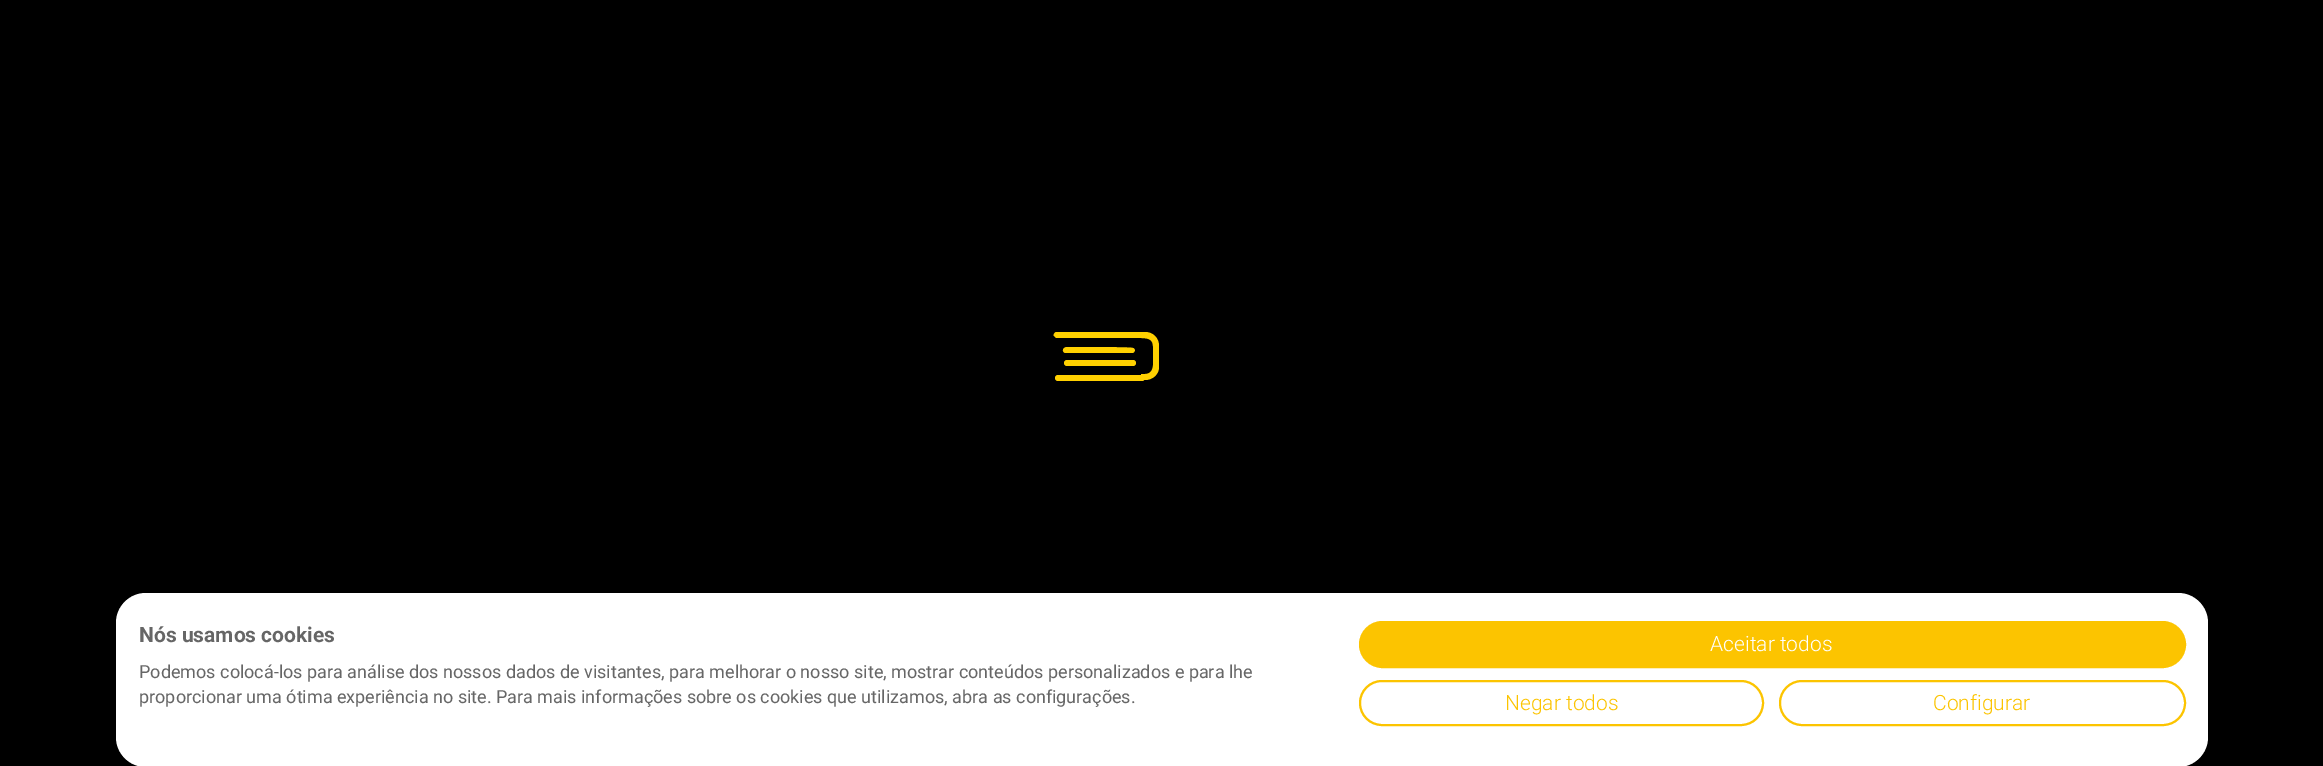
%!PS
<< /PageSize [2323 766] >> setpagedevice
/roundrect { 5 dict begin { /r /h /w /y /x } { exch def } forall
  x r add y moveto x w add y 2 copy h add r arct x w add y h add x 1 index r arct
  x y h add x y r arct x y 2 copy exch w add exch r arct closepath end } def
0 766 translate 1 -1 scale
4 setmiterlimit
0 setgray
0 0 2323 766 rectfill
1 0.816 0 setrgbcolor
1055 375 90 6 3 roundrect fill
newpath 1141 380 moveto 1141 332 lineto 1145 332 lineto 1153 332 1159 338 1159 346 curveto 1159 367 lineto 1159 374 1153 380 1145 380 curveto closepath 1141 374 moveto 1141 338 lineto 1155 338 1153 344 1153 356 curveto 1153 362 1155 374 1145 374 curveto closepath eofill
newpath 1141 338 moveto 1056 338 lineto 1054 336 lineto 1053 335 1054 333 1056 332 curveto 1142 332 lineto 1145 334 1144 338 1141 338 curveto closepath fill
newpath 1132 353 moveto 1066 353 lineto 1063 353 1062 350 1064 348 curveto 1066 347 lineto 1077 347 lineto 1083 347 1132 347 1133 348 curveto 1136 349 1135 353 1132 353 curveto closepath fill
1064 360 72 6 3 roundrect fill
1 setgray
116 593 2092 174 30 roundrect fill
/Roboto-Bold [21 0 0 -21 0 0] selectfont
0.4 setgray
139 642 moveto (Nós usamos cookies) show
/Roboto-Regular [18 0 0 -18 0 0] selectfont
139 678 moveto (Podemos colocá-los para análise dos nossos dados de visitantes, para melhorar o nosso site, mostrar conteúdos personalizados e para lhe) show
139 703 moveto (proporcionar uma ótima experiência no site. Para mais informações sobre os cookies que utilizamos, abra as configurações.) show
0.988 0.769 0 setrgbcolor
1360 622 825 45 22.5 roundrect gsave fill grestore
2 setlinewidth
stroke
/Roboto-Light [21 0 0 -21 0 0] selectfont
1 setgray
1710 651 moveto (Aceitar todos) show
0.988 0.769 0 setrgbcolor
1360 681 403 44 22 roundrect stroke
1505 710 moveto (Negar todos) show
1780 681 405 44 22 roundrect stroke
1933 710 moveto (Configurar) show
showpage
